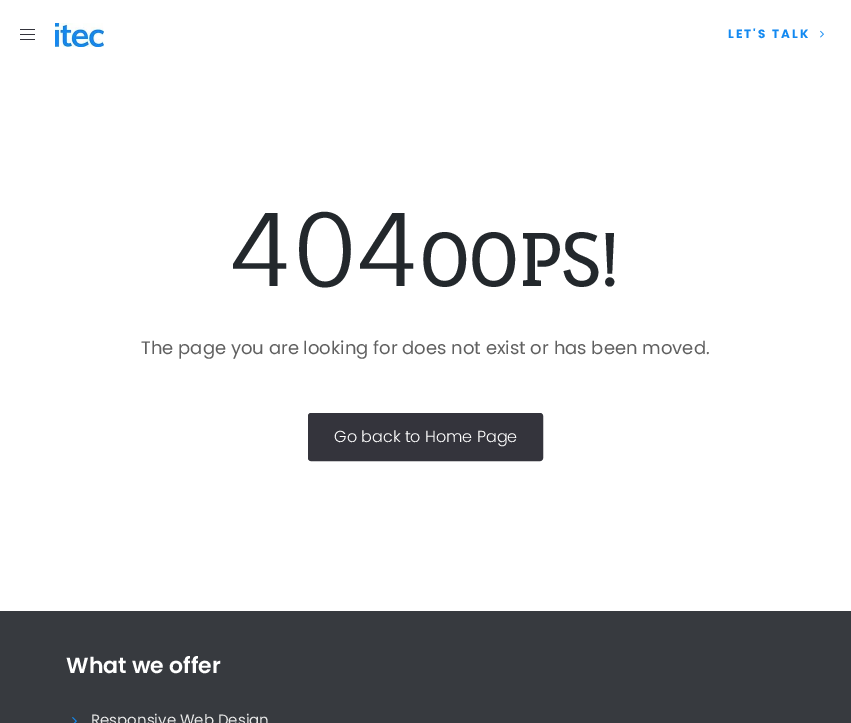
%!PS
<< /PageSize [851 723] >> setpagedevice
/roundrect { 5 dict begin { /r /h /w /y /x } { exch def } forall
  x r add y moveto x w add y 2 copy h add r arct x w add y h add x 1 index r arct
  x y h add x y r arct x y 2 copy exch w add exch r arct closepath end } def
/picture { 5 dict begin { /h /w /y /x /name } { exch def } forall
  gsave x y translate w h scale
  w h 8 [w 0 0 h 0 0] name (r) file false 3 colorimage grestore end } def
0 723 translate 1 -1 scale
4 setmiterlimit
1 setgray
0 0 851 723 rectfill
0.204 0.204 0.235 setrgbcolor
20 39 15 1 rectfill
20 29 15 1 rectfill
20 34 15 1 rectfill
(img1.rgb) 55 23 49 24 picture
/Poppins-Bold [12 0 0 -12 0 0] selectfont
0.071 0.537 0.945 setrgbcolor
728 38 moveto 2 0 (LET'S TALK) ashow
(img2.rgb) 820 30 4 8 picture
/FaunaOne-Regular [100 0 0 -100 0 0] selectfont
0.137 0.157 0.173 setrgbcolor
231 286 moveto (404) show
/FaunaOne-Bold [70 0 0 -70 0 0] selectfont
419 286 moveto (OOPS!) show
/Poppins-Regular [18 0 0 -18 0 0] selectfont
0.376 setgray
141 354 moveto (The page you are looking for does not exist or has been moved.) show
0.204 0.204 0.235 setrgbcolor
308.5 413.5 234 47 2.5 roundrect gsave fill grestore
stroke
/Poppins-Light [16 0 0 -16 0 0] selectfont
1 setgray
334 442 moveto (Go back to Home Page) show
0.216 0.227 0.247 setrgbcolor
0 611 851 112 rectfill
/Poppins-SemiBold [22 0 0 -22 0 0] selectfont
1 setgray
66 673 moveto (What we offer) show
(img3.rgb) 72 717 5 6 picture
/Poppins-Regular [15 0 0 -15 0 0] selectfont
0.902 setgray
91 725 moveto (Responsive Web Design) show
showpage
